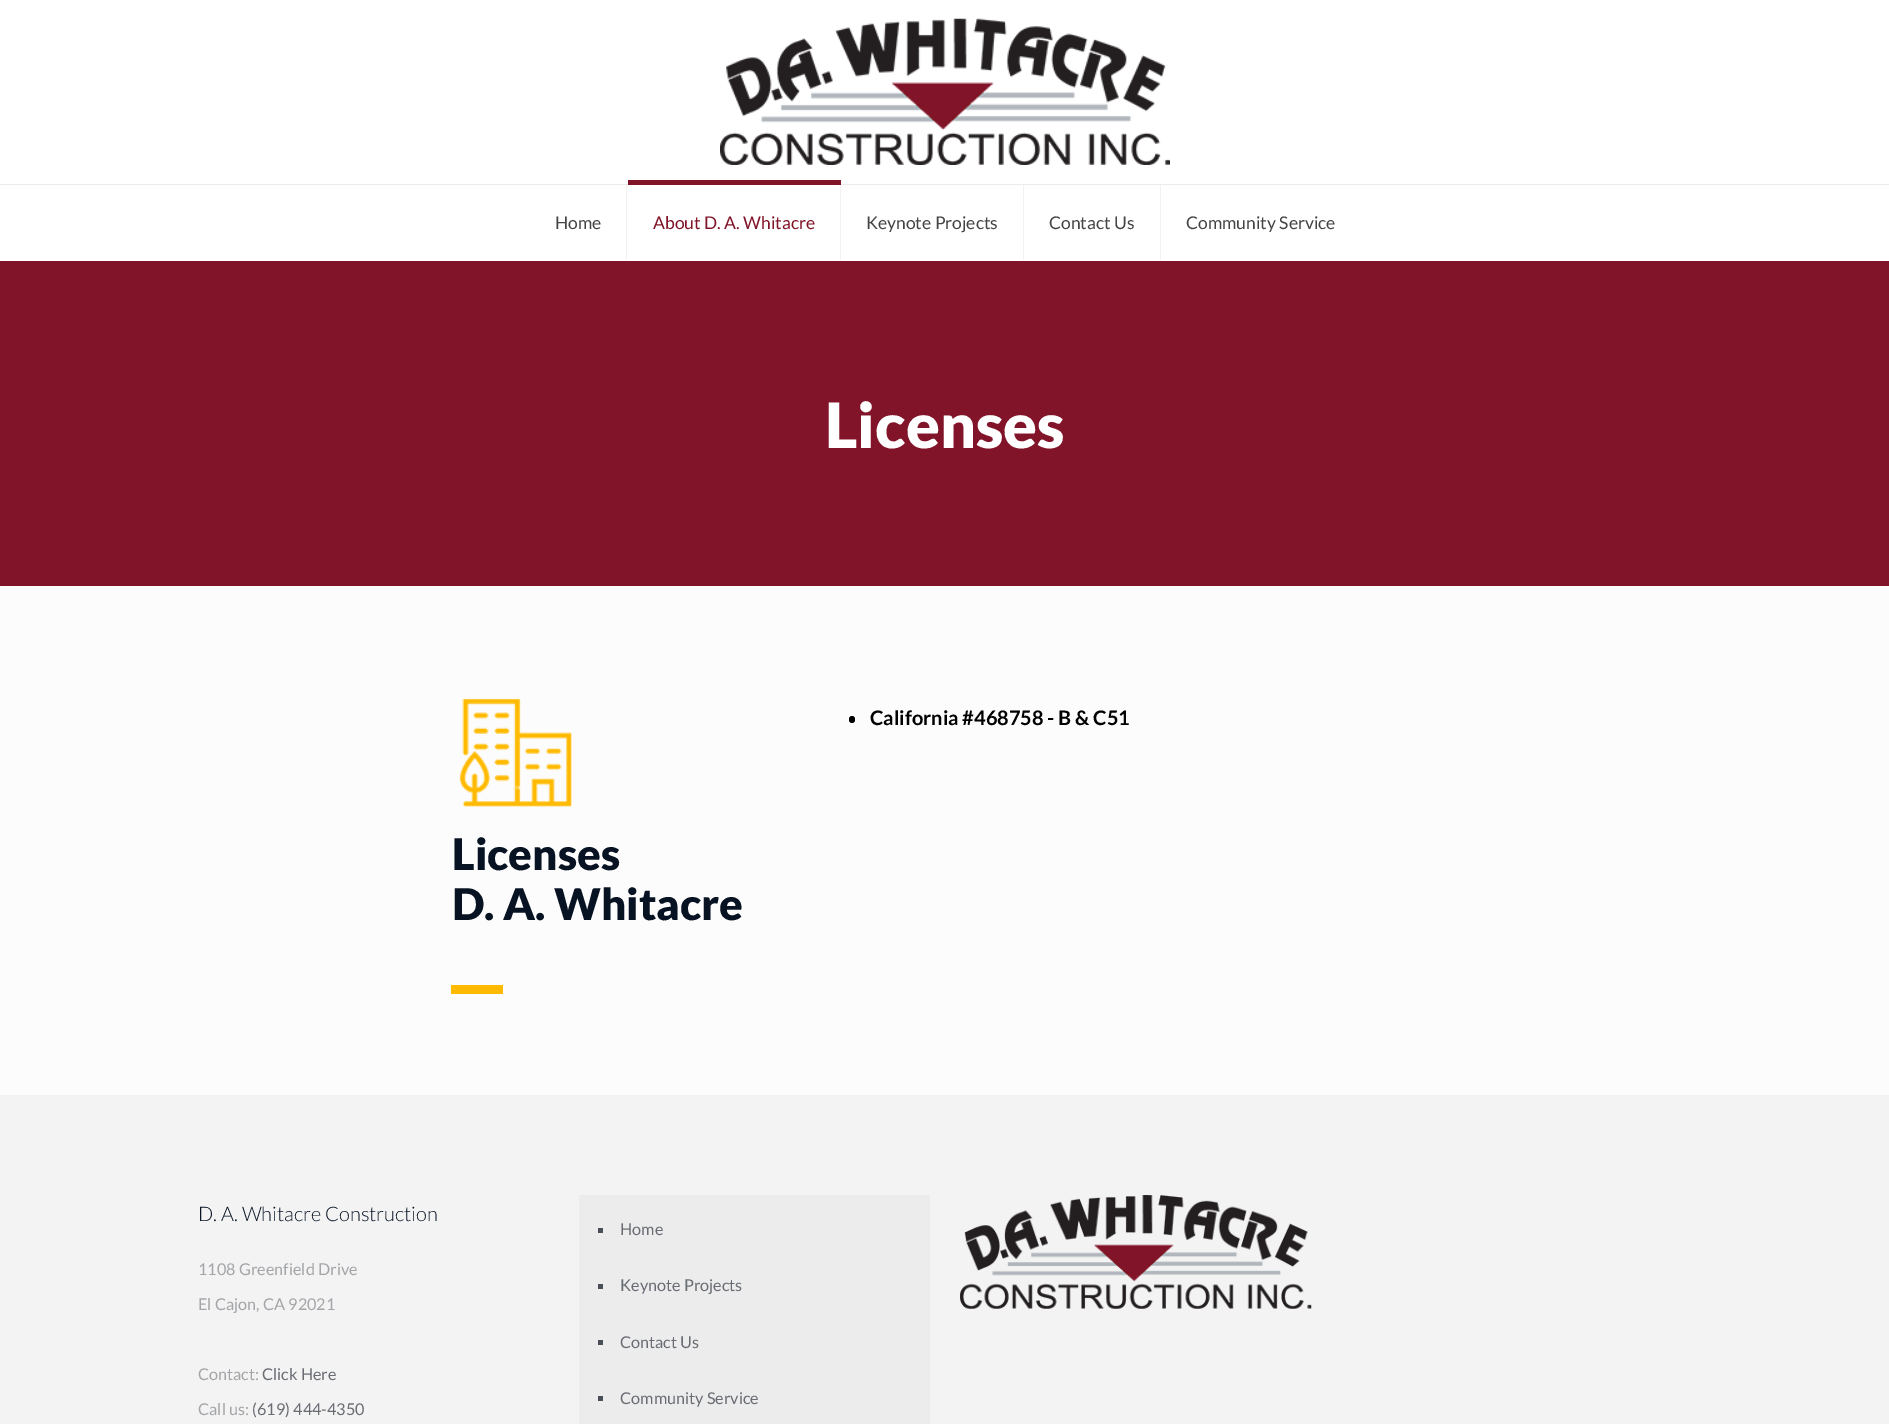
%!PS
<< /PageSize [1889 1424] >> setpagedevice
/roundrect { 5 dict begin { /r /h /w /y /x } { exch def } forall
  x r add y moveto x w add y 2 copy h add r arct x w add y h add x 1 index r arct
  x y h add x y r arct x y 2 copy exch w add exch r arct closepath end } def
/picture { 5 dict begin { /h /w /y /x /name } { exch def } forall
  gsave x y translate w h scale
  w h 8 [w 0 0 h 0 0] name (r) file false 3 colorimage grestore end } def
0 1424 translate 1 -1 scale
4 setmiterlimit
0.988 setgray
0 0 1889 1424 rectfill
1 setgray
0 0 1889 261 rectfill
0.922 setgray
0 184 1889 1 rectfill
(img1.rgb) 720 18 450 147 picture
0.949 setgray
626 185 1 75 rectfill
/Lato-Regular [17.5 0 0 -17.5 0 0] selectfont
0.267 setgray
555 229 moveto (Home) show
0.506 0.078 0.157 setrgbcolor
628 180 213 5 rectfill
0.949 setgray
840 185 1 75 rectfill
0.506 0.078 0.157 setrgbcolor
653 229 moveto (About D. A. Whitacre) show
0.949 setgray
1023 185 1 75 rectfill
0.267 setgray
866 229 moveto (Keynote Projects) show
0.949 setgray
1160 185 1 75 rectfill
0.267 setgray
1049 229 moveto (Contact Us) show
1186 229 moveto (Community Service) show
0.506 0.078 0.157 setrgbcolor
0 261 1889 325 rectfill
/Lato-Black [62.5 0 0 -62.5 0 0] selectfont
1 setgray
825 448 moveto (Licenses) show
0 setgray
849 716 6 7 3 roundrect fill
/Lato-Bold [20 0 0 -20 0 0] selectfont
870 725 moveto (California #468758 - B & C51) show
(img2.rgb) 459 698 113 109 picture
/Lato-Black [43.75 0 0 -43.75 0 0] selectfont
0.027 0.075 0.137 setrgbcolor
452 870 moveto (Licenses) show
452 920 moveto (D. A. Whitacre) show
1 0.729 0 setrgbcolor
451 985 52 9 rectfill
0.953 setgray
0 1095 1889 329 rectfill
/Lato-Light [20 0 0 -20 0 0] selectfont
0.027 0.075 0.137 setrgbcolor
198 1221 moveto (D. A. Whitacre Construction) show
/Lato-Regular [16.25 0 0 -16.25 0 0] selectfont
0.639 0.647 0.659 setrgbcolor
198 1275 moveto (1108 Greenfield Drive) show
198 1310 moveto (El Cajon, CA 92021) show
198 1380 moveto (Contact:) show
0.412 0.424 0.447 setrgbcolor
262 1380 moveto (Click Here) show
0.639 0.647 0.659 setrgbcolor
198 1415 moveto (Call us:) show
0.412 0.424 0.447 setrgbcolor
252 1415 moveto (\(619\) 444-4350) show
0.925 setgray
579 1195 351 229 rectfill
0.286 0.306 0.341 setrgbcolor
598 1228 5 5 rectfill
0.412 0.424 0.447 setrgbcolor
620 1235 moveto (Home) show
0.286 0.306 0.341 setrgbcolor
598 1284 5 5 rectfill
0.412 0.424 0.447 setrgbcolor
620 1291 moveto (Keynote Projects) show
0.286 0.306 0.341 setrgbcolor
598 1340 5 5 rectfill
0.412 0.424 0.447 setrgbcolor
620 1348 moveto (Contact Us) show
0.286 0.306 0.341 setrgbcolor
598 1396 5 5 rectfill
0.412 0.424 0.447 setrgbcolor
620 1404 moveto (Community Service) show
(img3.rgb) 960 1195 352 114 picture
showpage
